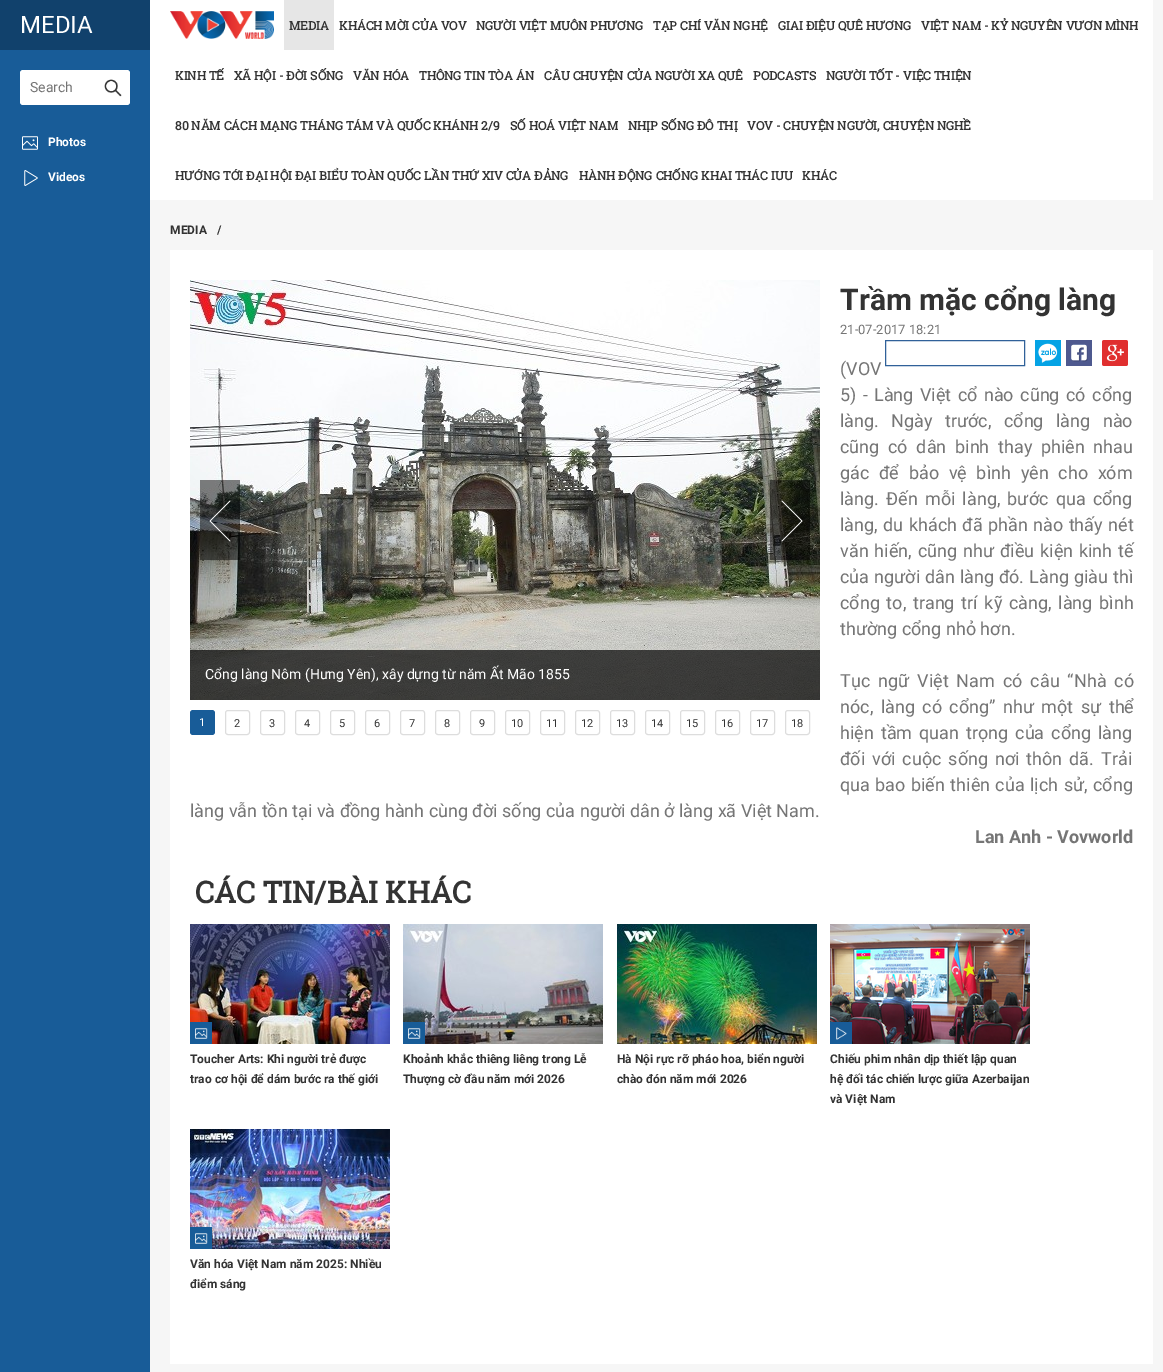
%!PS
<< /PageSize [1163 1372] /PageUsesTransparency true >> setpagedevice
/alpha { dup .setfillconstantalpha .setstrokeconstantalpha } def
/roundrect { 5 dict begin { /r /h /w /y /x } { exch def } forall
  x r add y moveto x w add y 2 copy h add r arct x w add y h add x 1 index r arct
  x y h add x y r arct x y 2 copy exch w add exch r arct closepath end } def
/picture { 5 dict begin { /h /w /y /x /name } { exch def } forall
  gsave x y translate w h scale
  w h 8 [w 0 0 h 0 0] name (r) file false 3 colorimage grestore end } def
0 .pushpdf14devicefilter
0 1372 translate 1 -1 scale
4 setmiterlimit
0.965 setgray
0 0 1163 1372 rectfill
0.094 0.361 0.596 setrgbcolor
0 50 150 1322 rectfill
0.067 0.255 0.424 setrgbcolor
0 0 150 50 rectfill
/Roboto-Regular [24 0 0 -24 0 0] selectfont
1 setgray
20 33 moveto (MEDIA) show
20 70 110 35 3 roundrect fill
/Roboto-Regular [14 0 0 -14 0 0] selectfont
0.459 setgray
30 92 moveto (Search) show
(img1.rgb) 104 79 18 18 picture
(img2.rgb) 22 136 16 14 picture
/Roboto-Bold [12 0 0 -12 0 0] selectfont
1 setgray
48 146 moveto (Photos) show
(img3.rgb) 24 170 14 16 picture
48 181 moveto (Videos) show
150 0 1003 200 rectfill
(img4.rgb) 170 11 104 28 picture
0.902 setgray
284 0 50 50 rectfill
/RobotoSlab-Bold [12 0 0 -12 0 0] selectfont
0.2 setgray
289 30 moveto (MEDIA) show
339 30 moveto (KHÁCH MỜI CỦA VOV) show
476 30 moveto (NGƯỜI VIỆT MUÔN PHƯƠNG) show
653 30 moveto (TẠP CHÍ VĂN NGHỆ) show
778 30 moveto (GIAI ĐIỆU QUÊ HƯƠNG) show
921 30 moveto (VIỆT NAM - KỶ NGUYÊN VƯƠN MÌNH) show
175 80 moveto (KINH TẾ) show
234 80 moveto (XÃ HỘI - ĐỜI SỐNG) show
353 80 moveto (VĂN HÓA) show
419 80 moveto (THÔNG TIN TÒA ÁN) show
544 80 moveto (CÂU CHUYỆN CỦA NGƯỜI XA QUÊ) show
753 80 moveto (PODCASTS) show
826 80 moveto (NGƯỜI TỐT - VIỆC THIỆN) show
175 130 moveto (80 NĂM CÁCH MẠNG THÁNG TÁM VÀ QUỐC KHÁNH 2/9) show
510 130 moveto (SỐ HOÁ VIỆT NAM) show
628 130 moveto (NHỊP SỐNG ĐÔ THỊ) show
747 130 moveto (VOV - CHUYỆN NGƯỜI, CHUYỆN NGHỀ) show
175 180 moveto (HƯỚNG TỚI ĐẠI HỘI ĐẠI BIỂU TOÀN QUỐC LẦN THỨ XIV CỦA ĐẢNG) show
579 180 moveto (HÀNH ĐỘNG CHỐNG KHAI THÁC IUU) show
802 180 moveto (KHÁC) show
/Roboto-Bold [12 0 0 -12 0 0] selectfont
170 234 moveto (MEDIA) show
217 234 moveto (/) show
1 setgray
170 250 983 1114 rectfill
/Roboto-Bold [30 0 0 -30 0 0] selectfont
0.2 setgray
840 310 moveto (Trầm mặc cổng làng) show
/Roboto-Regular [13 0 0 -13 0 0] selectfont
0.459 setgray
840 334 moveto (21-07-2017 18:21) show
0.188 0.38 0.6 setrgbcolor
885.5 340.5 139 25 rectstroke
(img5.rgb) 1035 340 26 26 picture
(img6.rgb) 1066 340 26 26 picture
(img7.rgb) 1102 340 26 26 picture
/Roboto-Regular [18 0 0 -18 0 0] selectfont
0.459 setgray
840 375 moveto (\(VOV) show
840 401 moveto 2 0 32 (5\) -) widthshow
874 401 moveto 2 0 32 (Làng Việt cổ nào cũng có cổng) widthshow
840 427 moveto 8 0 32 (làng. Ngày trước, cổng làng nào) widthshow
840 453 moveto 4.25 0 32 (cũng có dân binh thay phiên nhau) widthshow
840 479 moveto 5.25 0 32 (gác để bảo vệ bình yên cho xóm) widthshow
840 505 moveto 2.75 0 32 (làng. Đến mỗi làng, bước qua cổng) widthshow
840 531 moveto 1 0 32 (làng, du khách đã phần nào thấy nét) widthshow
840 557 moveto 1.5 0 32 (văn hiến, cũng như điều kiện kinh tế) widthshow
840 583 moveto 0.5 0 32 (của người dân làng đó. Làng giàu thì) widthshow
840 609 moveto 2.25 0 32 (cổng to, trang trí kỹ càng, làng bình) widthshow
840 635 moveto (thường cổng nhỏ hơn.) show
840 687 moveto 3.5 0 32 (Tục ngữ Việt Nam có câu “Nhà có) widthshow
840 713 moveto 3 0 32 (nóc, làng có cổng” như một sự thể) widthshow
840 739 moveto 2.5 0 32 (hiện tầm quan trọng của cổng làng) widthshow
840 765 moveto 2.5 0 32 (đối với cuộc sống nơi thôn dã. Trải) widthshow
840 791 moveto 1 0 32 (qua bao biến thiên của lịch sử, cổng) widthshow
190 817 moveto (làng vẫn tồn tại và đồng hành cùng đời sống của người dân ở làng xã Việt Nam.) show
/Roboto-Bold [18 0 0 -18 0 0] selectfont
975 843 moveto (Lan Anh - Vovworld) show
(img8.rgb) 190 280 630 420 picture
0.7 alpha
0 setgray
190 650 630 50 rectfill
/Roboto-Regular [14 0 0 -14 0 0] selectfont
1 alpha
1 setgray
205 679 moveto (Cổng làng Nôm \(Hưng Yên\), xây dựng từ năm Ất Mão 1855) show
0.5 alpha
0 setgray
200 480 40 80 rectfill
1 alpha
(img9.rgb) 208 499 23 43 picture
0.5 alpha
770 480 40 80 rectfill
1 alpha
(img10.rgb) 781 500 22 43 picture
0.094 0.361 0.596 setrgbcolor
190 710 25 25 3 roundrect fill
/Roboto-Regular [11 0 0 -11 0 0] selectfont
1 setgray
199 726 moveto (1) show
0.867 setgray
225.5 710.5 24 24 2.5 roundrect stroke
0.2 setgray
234 727 moveto (2) show
0.867 setgray
260.5 710.5 24 24 2.5 roundrect stroke
0.2 setgray
269 727 moveto (3) show
0.867 setgray
295.5 710.5 24 24 2.5 roundrect stroke
0.2 setgray
304 727 moveto (4) show
0.867 setgray
330.5 710.5 24 24 2.5 roundrect stroke
0.2 setgray
339 727 moveto (5) show
0.867 setgray
365.5 710.5 24 24 2.5 roundrect stroke
0.2 setgray
374 727 moveto (6) show
0.867 setgray
400.5 710.5 24 24 2.5 roundrect stroke
0.2 setgray
409 727 moveto (7) show
0.867 setgray
435.5 710.5 24 24 2.5 roundrect stroke
0.2 setgray
444 727 moveto (8) show
0.867 setgray
470.5 710.5 24 24 2.5 roundrect stroke
0.2 setgray
479 727 moveto (9) show
0.867 setgray
505.5 710.5 24 24 2.5 roundrect stroke
0.2 setgray
511 727 moveto (10) show
0.867 setgray
540.5 710.5 24 24 2.5 roundrect stroke
0.2 setgray
546 727 moveto (11) show
0.867 setgray
575.5 710.5 24 24 2.5 roundrect stroke
0.2 setgray
581 727 moveto (12) show
0.867 setgray
610.5 710.5 24 24 2.5 roundrect stroke
0.2 setgray
616 727 moveto (13) show
0.867 setgray
645.5 710.5 24 24 2.5 roundrect stroke
0.2 setgray
651 727 moveto (14) show
0.867 setgray
680.5 710.5 24 24 2.5 roundrect stroke
0.2 setgray
686 727 moveto (15) show
0.867 setgray
715.5 710.5 24 24 2.5 roundrect stroke
0.2 setgray
721 727 moveto (16) show
0.867 setgray
750.5 710.5 24 24 2.5 roundrect stroke
0.2 setgray
756 727 moveto (17) show
0.867 setgray
785.5 710.5 24 24 2.5 roundrect stroke
0.2 setgray
791 727 moveto (18) show
/RobotoSlab-Bold [30 0 0 -30 0 0] selectfont
195 903 moveto (CÁC TIN/BÀI KHÁC) show
(img11.rgb) 190 924 200 120 picture
0.094 0.361 0.596 setrgbcolor
190 1022 22 22 rectfill
(img12.rgb) 195 1028 13 11 picture
/Roboto-Bold [12 0 0 -12 0 0] selectfont
0.2 setgray
190 1063 moveto (Toucher Arts: Khi người trẻ được) show
190 1083 moveto (trao cơ hội để dám bước ra thế giới) show
(img13.rgb) 403 924 200 120 picture
0.094 0.361 0.596 setrgbcolor
403 1022 22 22 rectfill
(img12.rgb) 408 1028 13 11 picture
0.2 setgray
403 1063 moveto (Khoảnh khắc thiêng liêng trong Lễ) show
403 1083 moveto (Thượng cờ đầu năm mới 2026) show
(img14.rgb) 617 924 200 120 picture
617 1063 moveto (Hà Nội rực rỡ pháo hoa, biển người) show
617 1083 moveto (chào đón năm mới 2026) show
(img15.rgb) 830 924 200 120 picture
0.094 0.361 0.596 setrgbcolor
830 1022 22 22 rectfill
(img16.rgb) 836 1027 11 13 picture
0.2 setgray
830 1063 moveto (Chiếu phim nhân dịp thiết lập quan) show
830 1083 moveto (hệ đối tác chiến lược giữa Azerbaijan) show
830 1103 moveto (và Việt Nam) show
(img17.rgb) 190 1129 200 120 picture
0.094 0.361 0.596 setrgbcolor
190 1227 22 22 rectfill
(img12.rgb) 195 1233 13 11 picture
0.2 setgray
190 1268 moveto (Văn hóa Việt Nam năm 2025: Nhiều) show
190 1288 moveto (điểm sáng) show
.poppdf14devicefilter showpage
